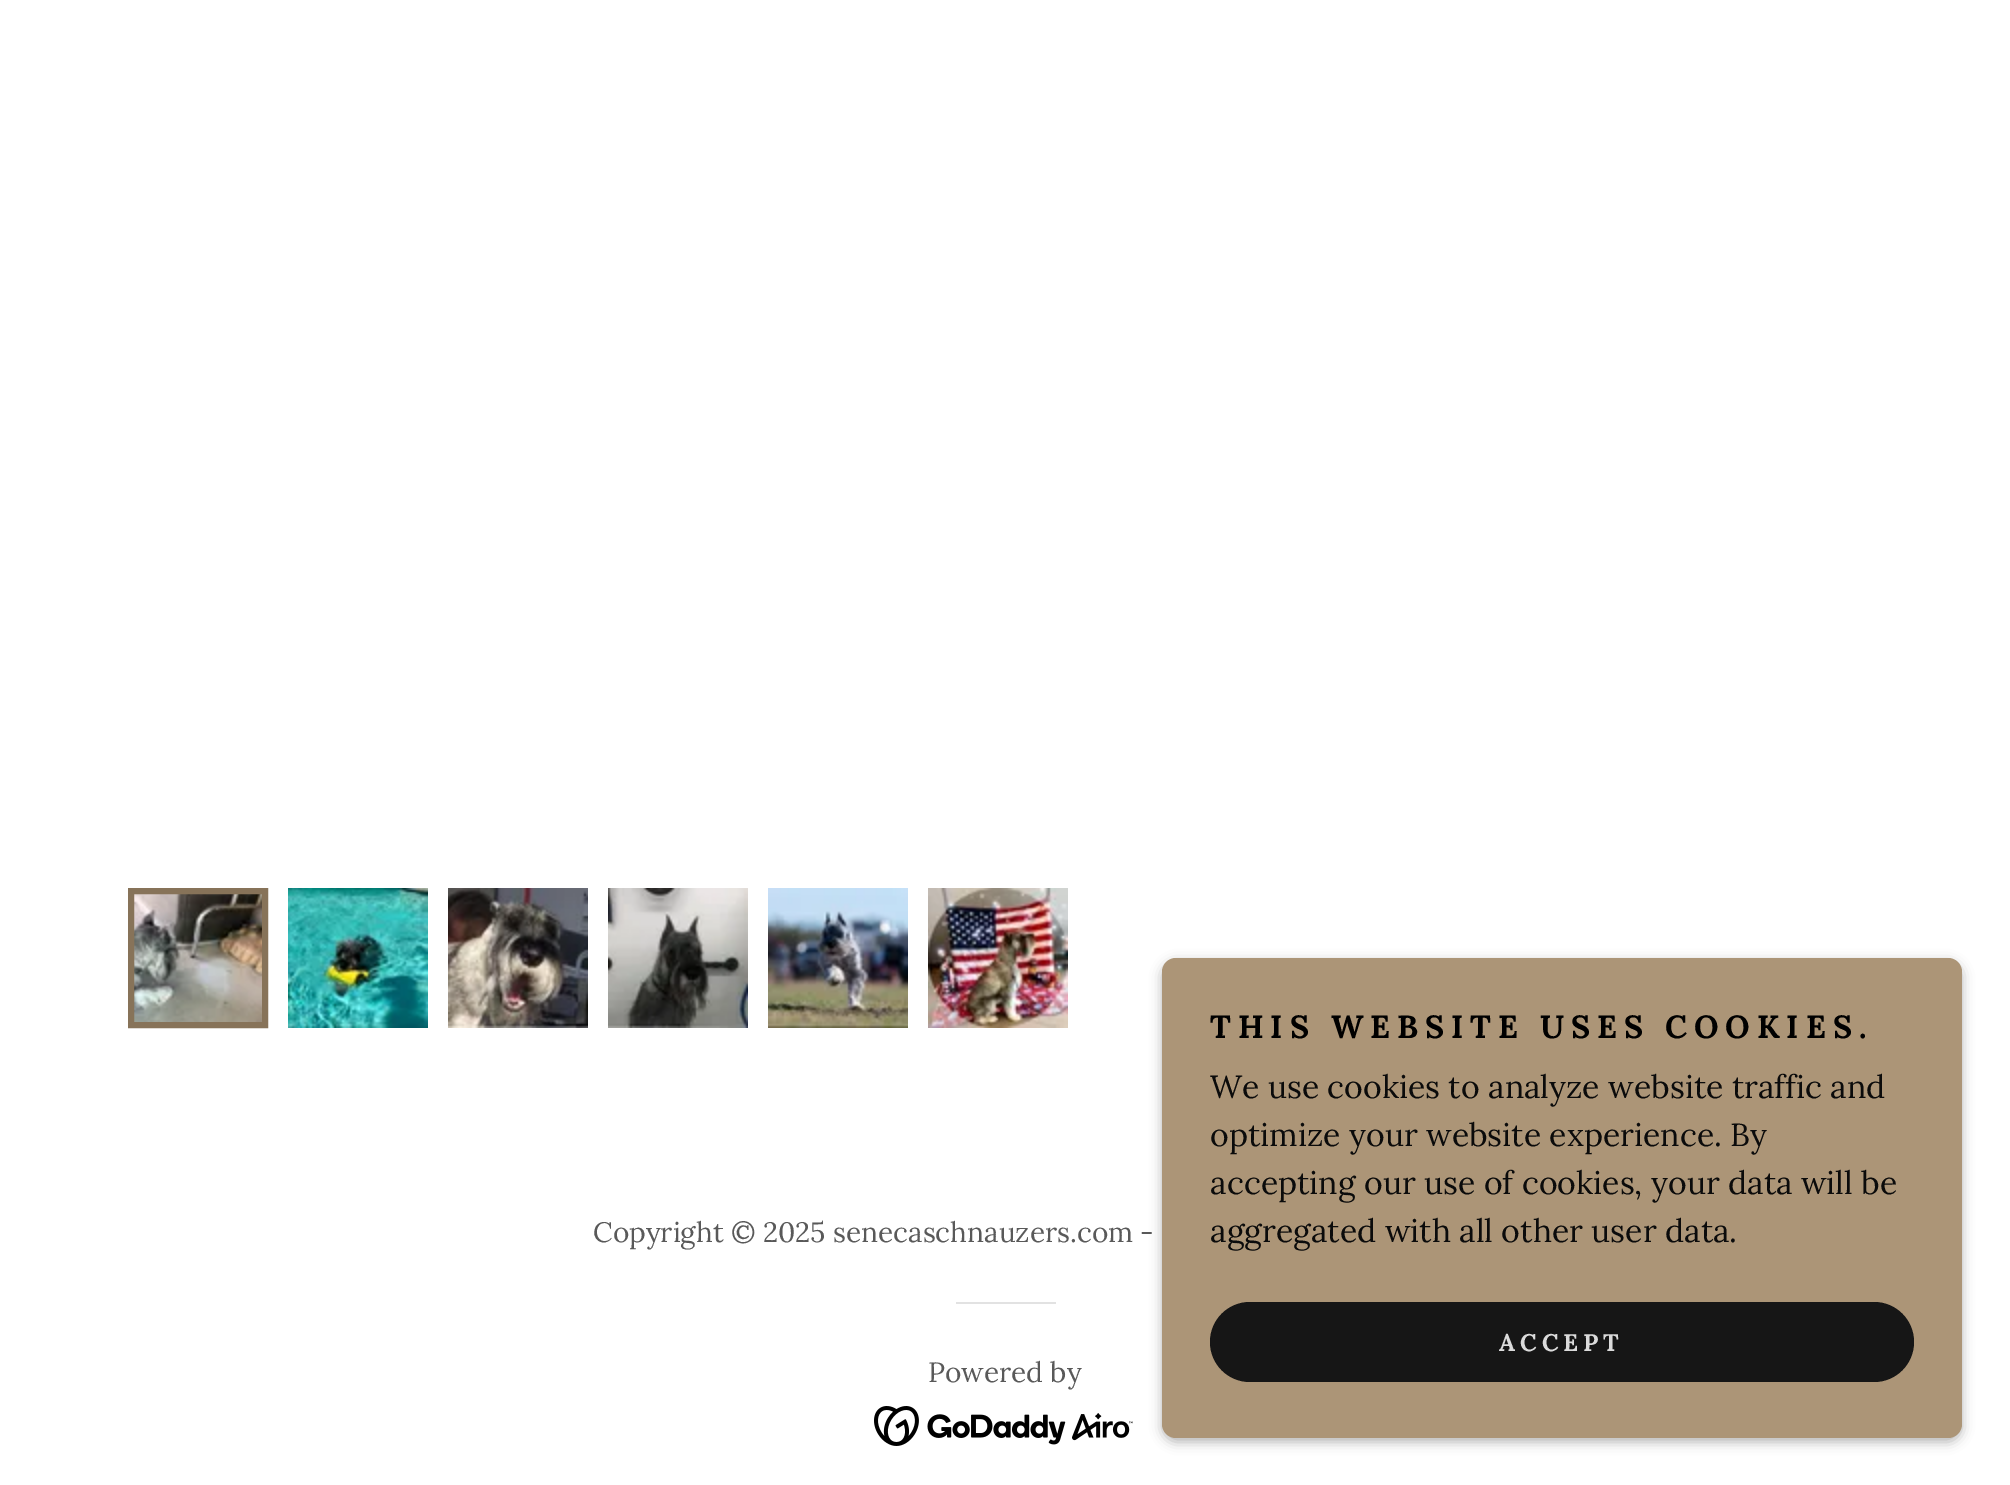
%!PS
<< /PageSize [2010 1485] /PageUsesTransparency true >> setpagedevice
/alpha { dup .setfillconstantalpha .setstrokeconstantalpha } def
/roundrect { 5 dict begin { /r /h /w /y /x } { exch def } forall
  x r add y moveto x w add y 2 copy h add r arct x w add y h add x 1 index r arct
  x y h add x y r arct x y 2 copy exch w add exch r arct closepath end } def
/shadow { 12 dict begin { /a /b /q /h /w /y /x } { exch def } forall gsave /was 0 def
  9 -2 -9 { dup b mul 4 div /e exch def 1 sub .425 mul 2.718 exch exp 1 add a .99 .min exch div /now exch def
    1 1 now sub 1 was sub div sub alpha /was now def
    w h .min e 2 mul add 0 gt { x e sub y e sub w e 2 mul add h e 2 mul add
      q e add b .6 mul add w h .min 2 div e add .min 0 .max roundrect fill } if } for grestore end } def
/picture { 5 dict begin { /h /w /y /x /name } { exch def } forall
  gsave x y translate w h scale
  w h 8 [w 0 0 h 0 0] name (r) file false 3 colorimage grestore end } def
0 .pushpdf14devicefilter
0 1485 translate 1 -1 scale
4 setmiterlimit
1 setgray
0 0 2010 1485 rectfill
(img1.rgb) 134 894 128 128 picture
0.529 0.451 0.349 setrgbcolor
6 setlinewidth
131 891 134 134 rectstroke
(img2.rgb) 288 888 140 140 picture
(img3.rgb) 448 888 140 140 picture
(img4.rgb) 608 888 140 140 picture
(img5.rgb) 768 888 140 140 picture
(img6.rgb) 928 888 140 140 picture
/Lora-Regular [28 0 0 -28 0 0] selectfont
0.349 setgray
593 1242 moveto (Copyright © 2025 senecaschnauzers.com -) show
0.886 setgray
956 1302 100 2 rectfill
0.349 setgray
928 1382 moveto (Powered by) show
(img7.rgb) 874 1406 259 40 picture
0 setgray
1162 962 800 480 14 6 0.3 shadow
0.675 0.584 0.467 setrgbcolor
1162 958 800 480 14 roundrect fill
/Lora-Bold [32 0 0 -32 0 0] selectfont
0 setgray
1210 1038 moveto 6.85 0 (THIS WEBSITE USES COOKIES.) ashow
/Lora-Regular [32 0 0 -32 0 0] selectfont
0.043 setgray
1210 1098 moveto (We use cookies to analyze website traffic and) show
1210 1146 moveto (optimize your website experience. By) show
1210 1194 moveto (accepting our use of cookies, your data will be) show
1210 1242 moveto (aggregated with all other user data.) show
0.086 setgray
1210 1302 704 80 40 roundrect fill
/Lora-Bold [24 0 0 -24 0 0] selectfont
0.859 setgray
1499 1351 moveto 5 0 (ACCEPT) ashow
.poppdf14devicefilter showpage
